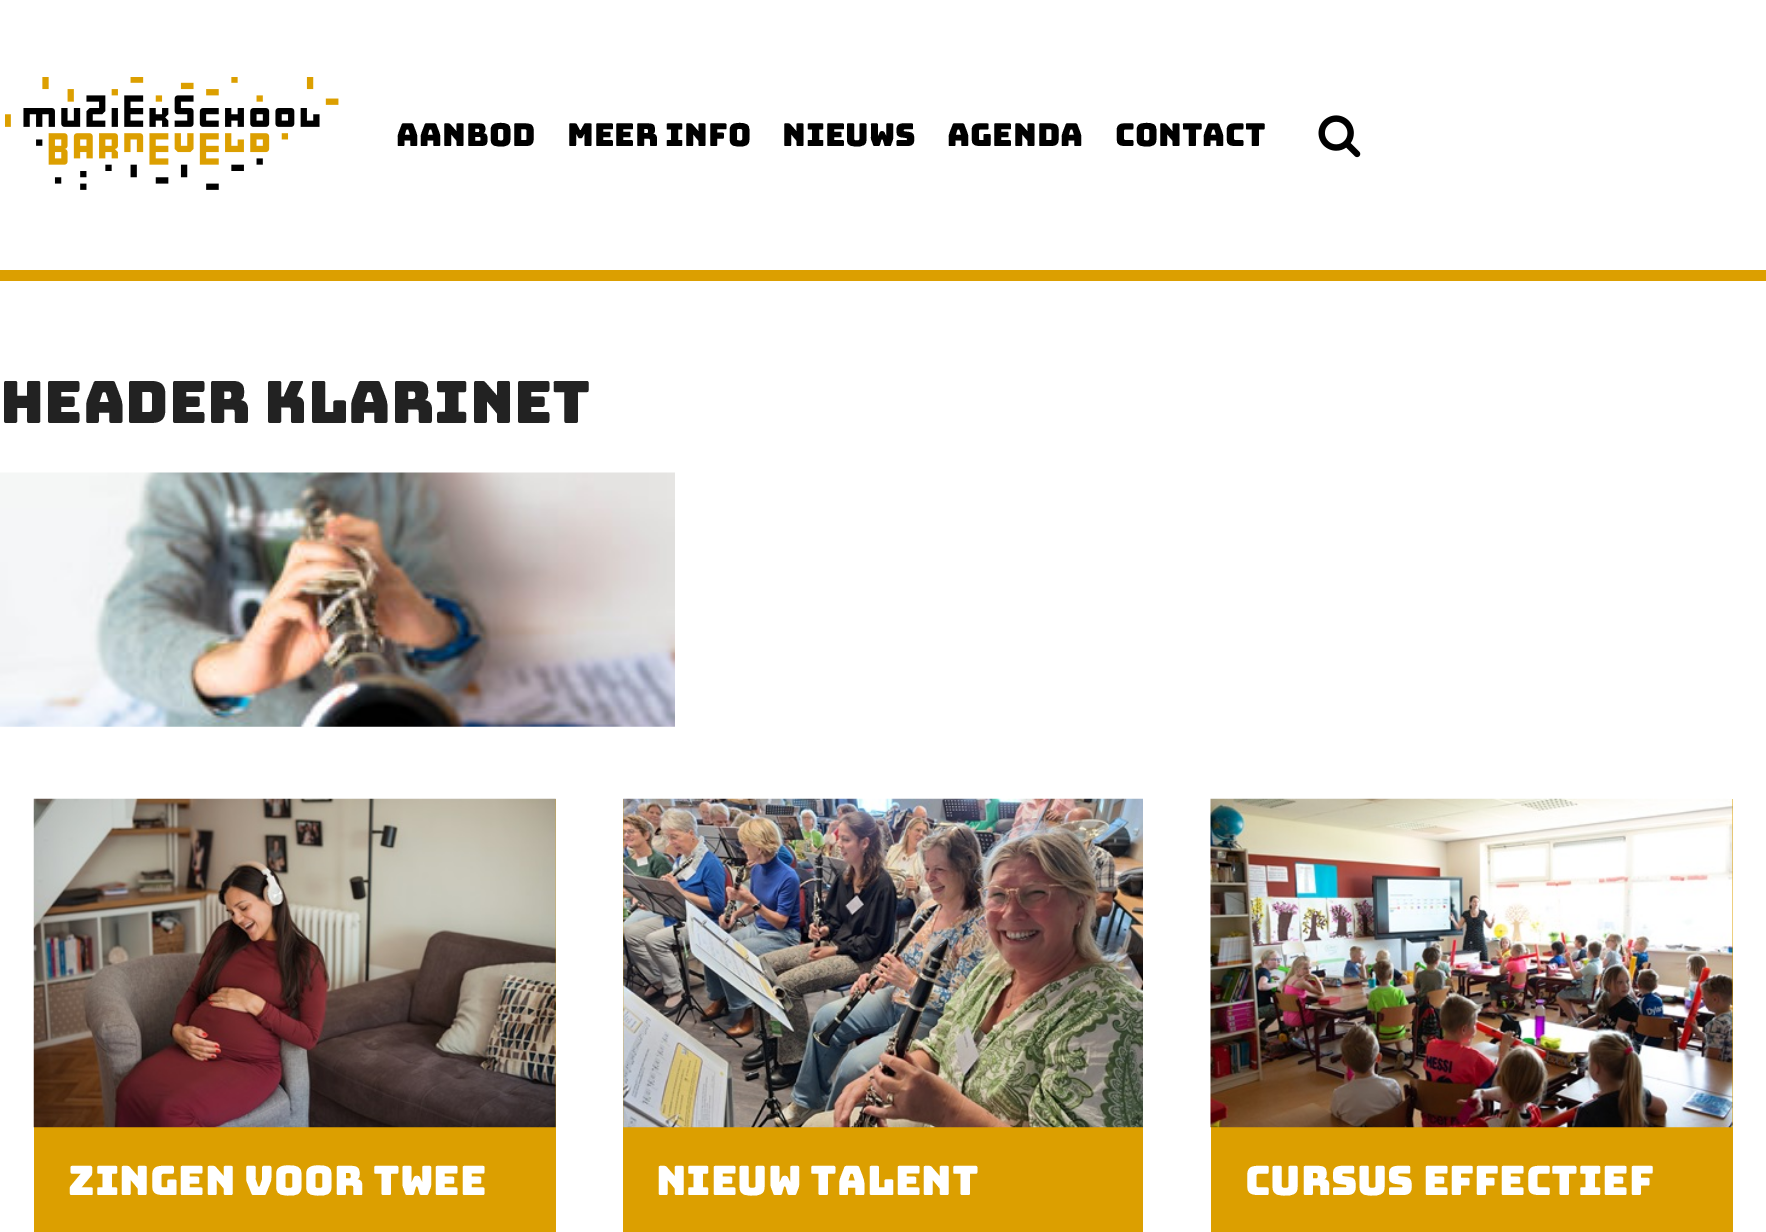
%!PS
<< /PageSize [1766 1232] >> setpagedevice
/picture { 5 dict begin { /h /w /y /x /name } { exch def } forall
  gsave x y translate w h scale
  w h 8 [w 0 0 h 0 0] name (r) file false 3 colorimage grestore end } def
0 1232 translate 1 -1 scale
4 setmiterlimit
1 setgray
0 0 1766 1232 rectfill
0.863 0.624 0 setrgbcolor
0 270 1766 11 rectfill
(img1.rgb) 5 77 334 113 picture
/Bungee-Regular [31.5 0 0 -31.5 0 0] selectfont
0 setgray
396 146 moveto (AANBOD) show
567 146 moveto (MEER INFO) show
782 146 moveto (NIEUWS) show
947 146 moveto (AGENDA) show
1115 146 moveto (CONTACT) show
(img2.rgb) 1318 115 43 43 picture
/Bungee-Regular [58.5 0 0 -58.5 0 0] selectfont
0.133 setgray
0 423 moveto (HEADER KLARINET) show
(img3.rgb) 0 472 675 255 picture
0.863 0.624 0 setrgbcolor
34 799 522 433 rectfill
(img4.rgb) 33 798 523 330 picture
/Bungee-Regular [40.5 0 0 -40.5 0 0] selectfont
1 setgray
68 1195 moveto (Zingen voor twee) show
0.863 0.624 0 setrgbcolor
623 799 520 433 rectfill
(img5.rgb) 623 798 520 330 picture
1 setgray
656 1195 moveto (Nieuw Talent) show
0.863 0.624 0 setrgbcolor
1211 799 522 433 rectfill
(img6.rgb) 1210 798 523 330 picture
1 setgray
1245 1195 moveto (Cursus Effectief) show
showpage
